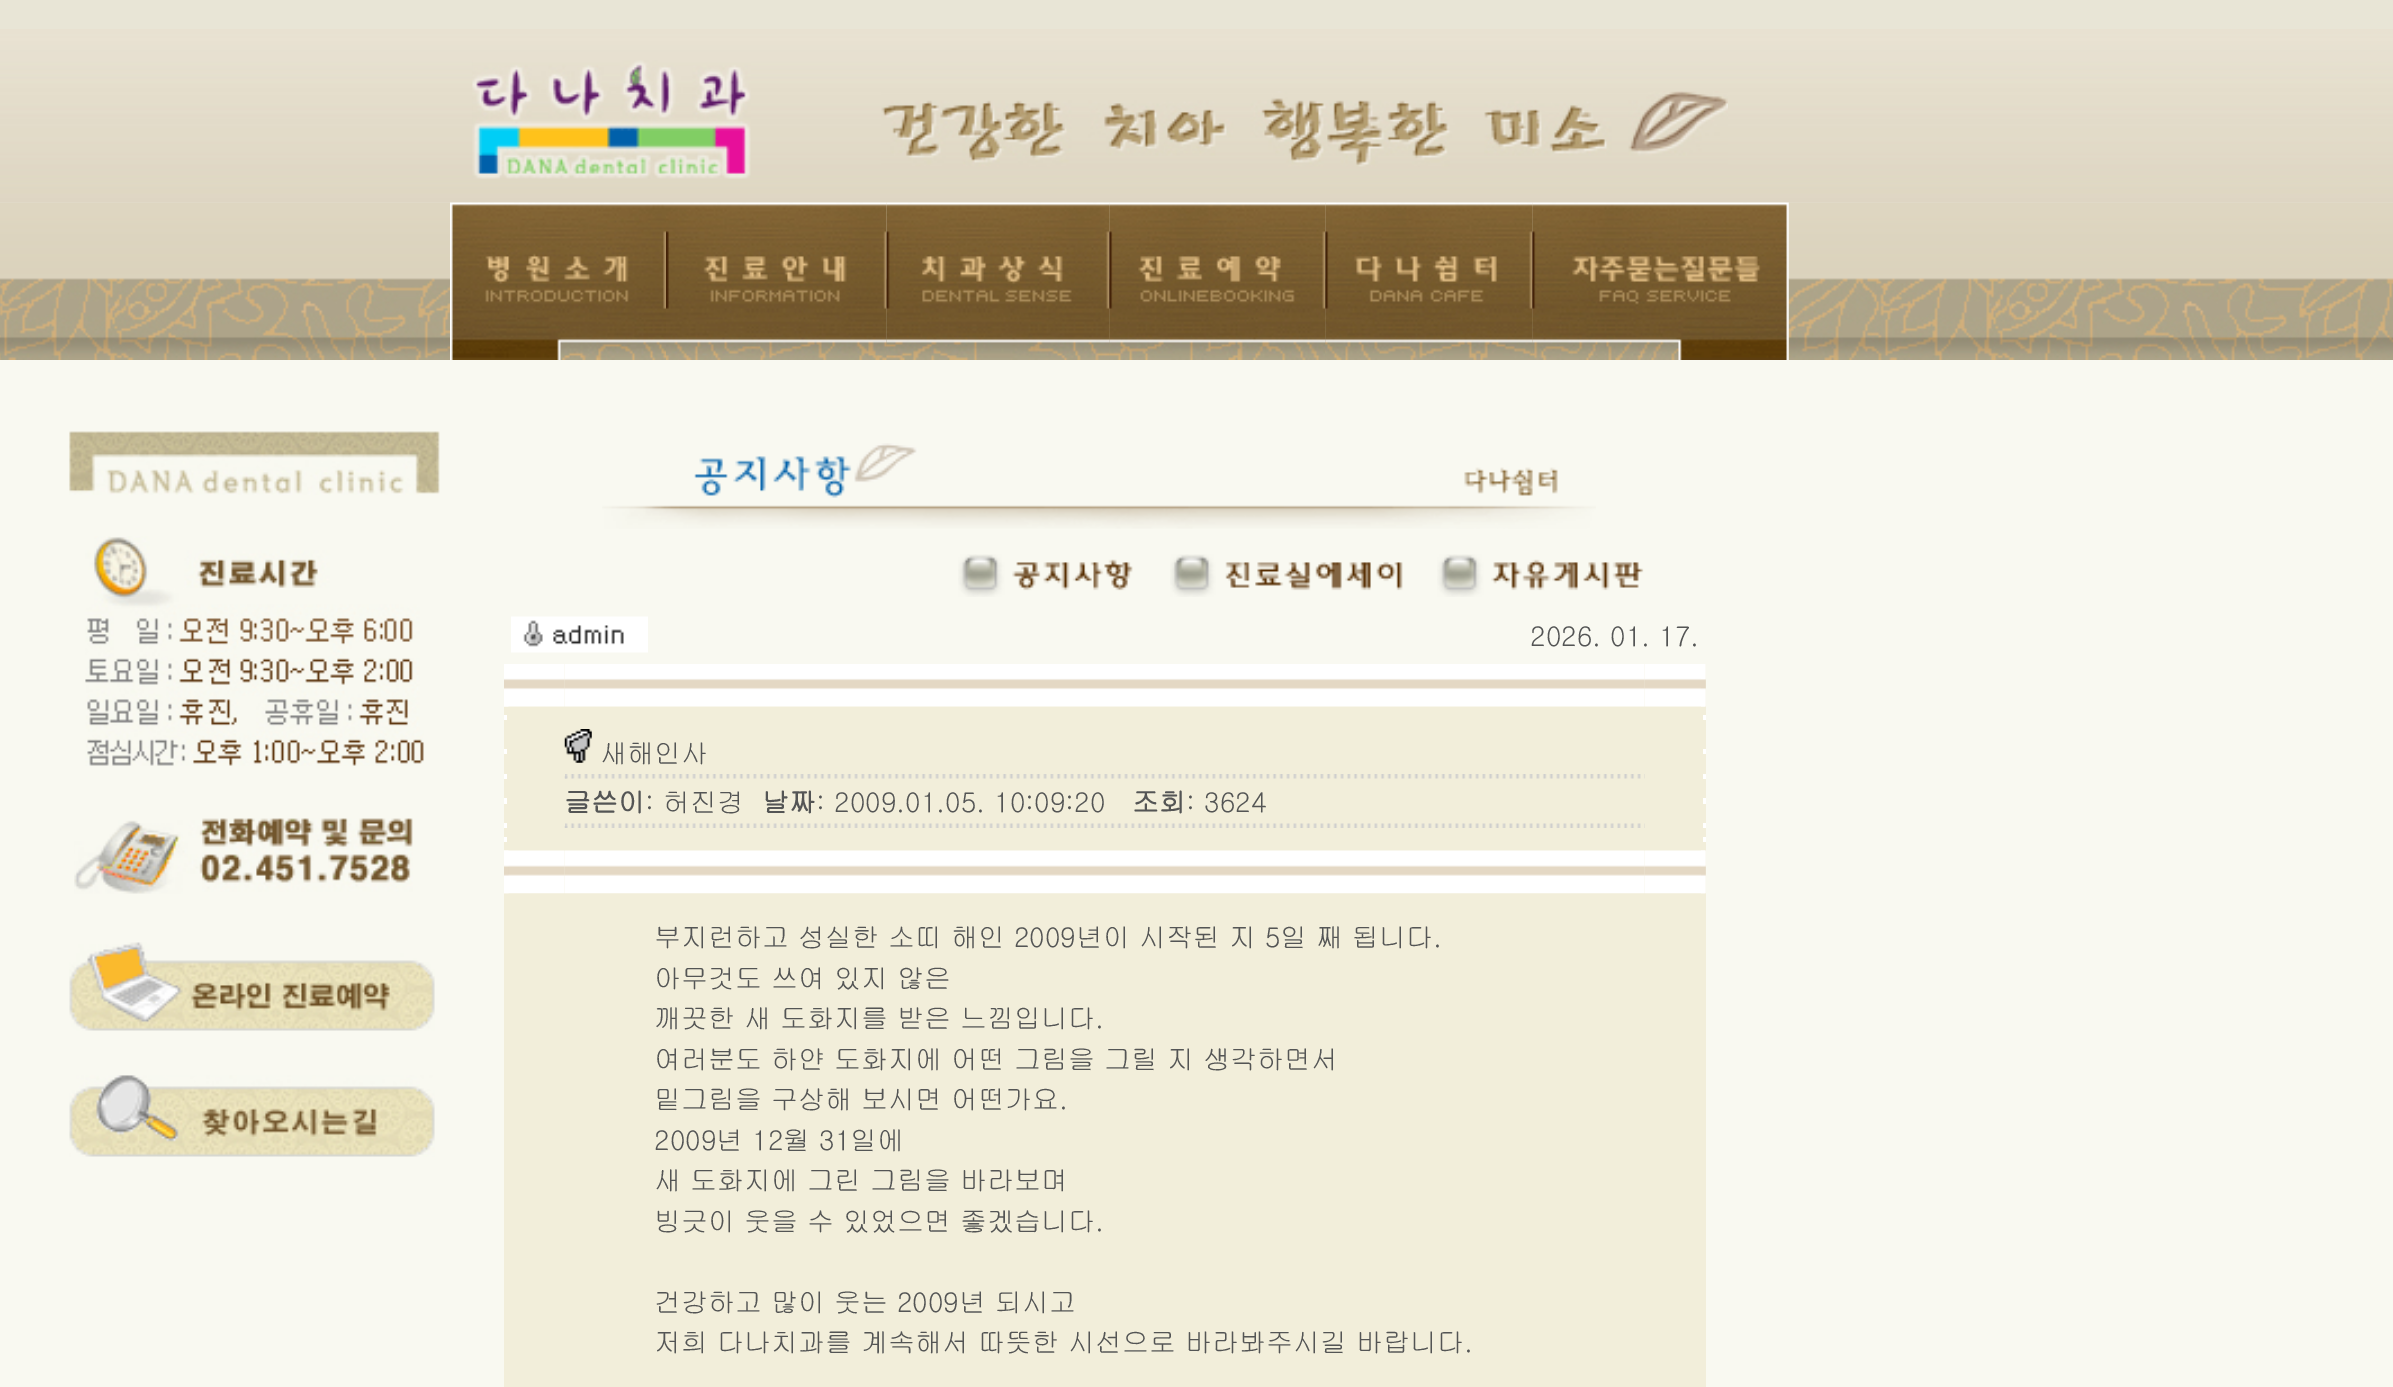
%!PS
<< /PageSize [2393 1387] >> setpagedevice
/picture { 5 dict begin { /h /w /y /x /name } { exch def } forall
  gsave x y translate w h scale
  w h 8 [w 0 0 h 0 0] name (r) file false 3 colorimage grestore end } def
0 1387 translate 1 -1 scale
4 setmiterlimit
0.91 0.898 0.839 setrgbcolor
0 0 2393 1387 rectfill
(img1.rgb) 0 29 2393 174 picture
(img2.rgb) 472 60 279 119 picture
(img3.rgb) 881 91 847 76 picture
(img4.rgb) 0 202 2393 158 picture
(img5.rgb) 450 202 216 158 picture
(img6.rgb) 666 202 221 158 picture
(img7.rgb) 886 202 224 158 picture
(img8.rgb) 1109 202 217 158 picture
(img9.rgb) 1325 202 208 158 picture
(img10.rgb) 1532 202 257 158 picture
0.976 0.976 0.945 setrgbcolor
0 360 2393 1027 rectfill
(img11.rgb) 69 431 371 64 picture
(img12.rgb) 85 536 339 230 picture
(img13.rgb) 74 818 339 76 picture
(img14.rgb) 69 942 366 89 picture
(img15.rgb) 69 1075 366 82 picture
(img16.rgb) 602 443 994 86 picture
(img17.rgb) 958 554 175 43 picture
(img18.rgb) 1170 554 233 43 picture
(img19.rgb) 1437 554 207 43 picture
(img20.rgb) 511 616 137 37 picture
/Gulim-Regular [27 0 0 -27 0 0] selectfont
0.329 0.333 0.333 setrgbcolor
1530 646 moveto (2026. 01. 17.) show
0.949 0.933 0.855 setrgbcolor
504 664 1202 723 rectfill
(img21.rgb) 504 664 61 43 picture
(img22.rgb) 504 706 5 1 picture
(img23.rgb) 565 664 1080 43 picture
(img24.rgb) 1645 664 61 43 picture
(img25.rgb) 1701 664 5 43 picture
1 setgray
504 715 3 5 rectfill
1703 715 3 5 rectfill
504 749 3 5 rectfill
(img26.rgb) 564 729 28 34 picture
0.329 0.333 0.333 setrgbcolor
600 763 moveto (새해인사) show
1 setgray
1703 749 3 5 rectfill
504 774 3 5 rectfill
(img27.rgb) 565 774 1080 5 picture
(img28.rgb) 564 776 4 3 picture
1703 774 3 5 rectfill
504 798 3 6 rectfill
/Gulim-Bold [27 0 0 -27 0 0] selectfont
0.329 0.333 0.333 setrgbcolor
564 812 moveto (글쓴이) show
/Gulim-Regular [27 0 0 -27 0 0] selectfont
645 812 moveto (: 허진경) show
/Gulim-Bold [27 0 0 -27 0 0] selectfont
762 812 moveto (날짜) show
/Gulim-Regular [27 0 0 -27 0 0] selectfont
816 812 moveto (: 2009.01.05. 10:09:20) show
/Gulim-Bold [27 0 0 -27 0 0] selectfont
1132 812 moveto (조회) show
/Gulim-Regular [27 0 0 -27 0 0] selectfont
1186 812 moveto (: 3624) show
1 setgray
1703 798 3 6 rectfill
504 823 3 5 rectfill
(img29.rgb) 565 823 1080 5 picture
(img30.rgb) 564 826 4 2 picture
1703 823 3 5 rectfill
504 837 3 5 rectfill
1703 837 3 5 rectfill
(img31.rgb) 504 850 61 44 picture
(img32.rgb) 504 850 5 44 picture
(img33.rgb) 565 850 1080 44 picture
(img34.rgb) 1645 850 61 44 picture
(img35.rgb) 1701 850 5 44 picture
0.329 0.333 0.333 setrgbcolor
654 947 moveto (부지런하고 성실한 소띠 해인 2009년이 시작된 지 5일 째 됩니다.) show
654 988 moveto (아무것도 쓰여 있지 않은) show
654 1028 moveto (깨끗한 새 도화지를 받은 느낌입니다.) show
654 1069 moveto (여러분도 하얀 도화지에 어떤 그림을 그릴 지 생각하면서) show
654 1109 moveto (밑그림을 구상해 보시면 어떤가요.) show
654 1150 moveto (2009년 12월 31일에) show
654 1190 moveto (새 도화지에 그린 그림을 바라보며) show
654 1231 moveto (빙긋이 웃을 수 있었으면 좋겠습니다.) show
654 1312 moveto (건강하고 많이 웃는 2009년 되시고) show
654 1352 moveto (저희 다나치과를 계속해서 따뜻한 시선으로 바라봐주시길 바랍니다.) show
showpage
